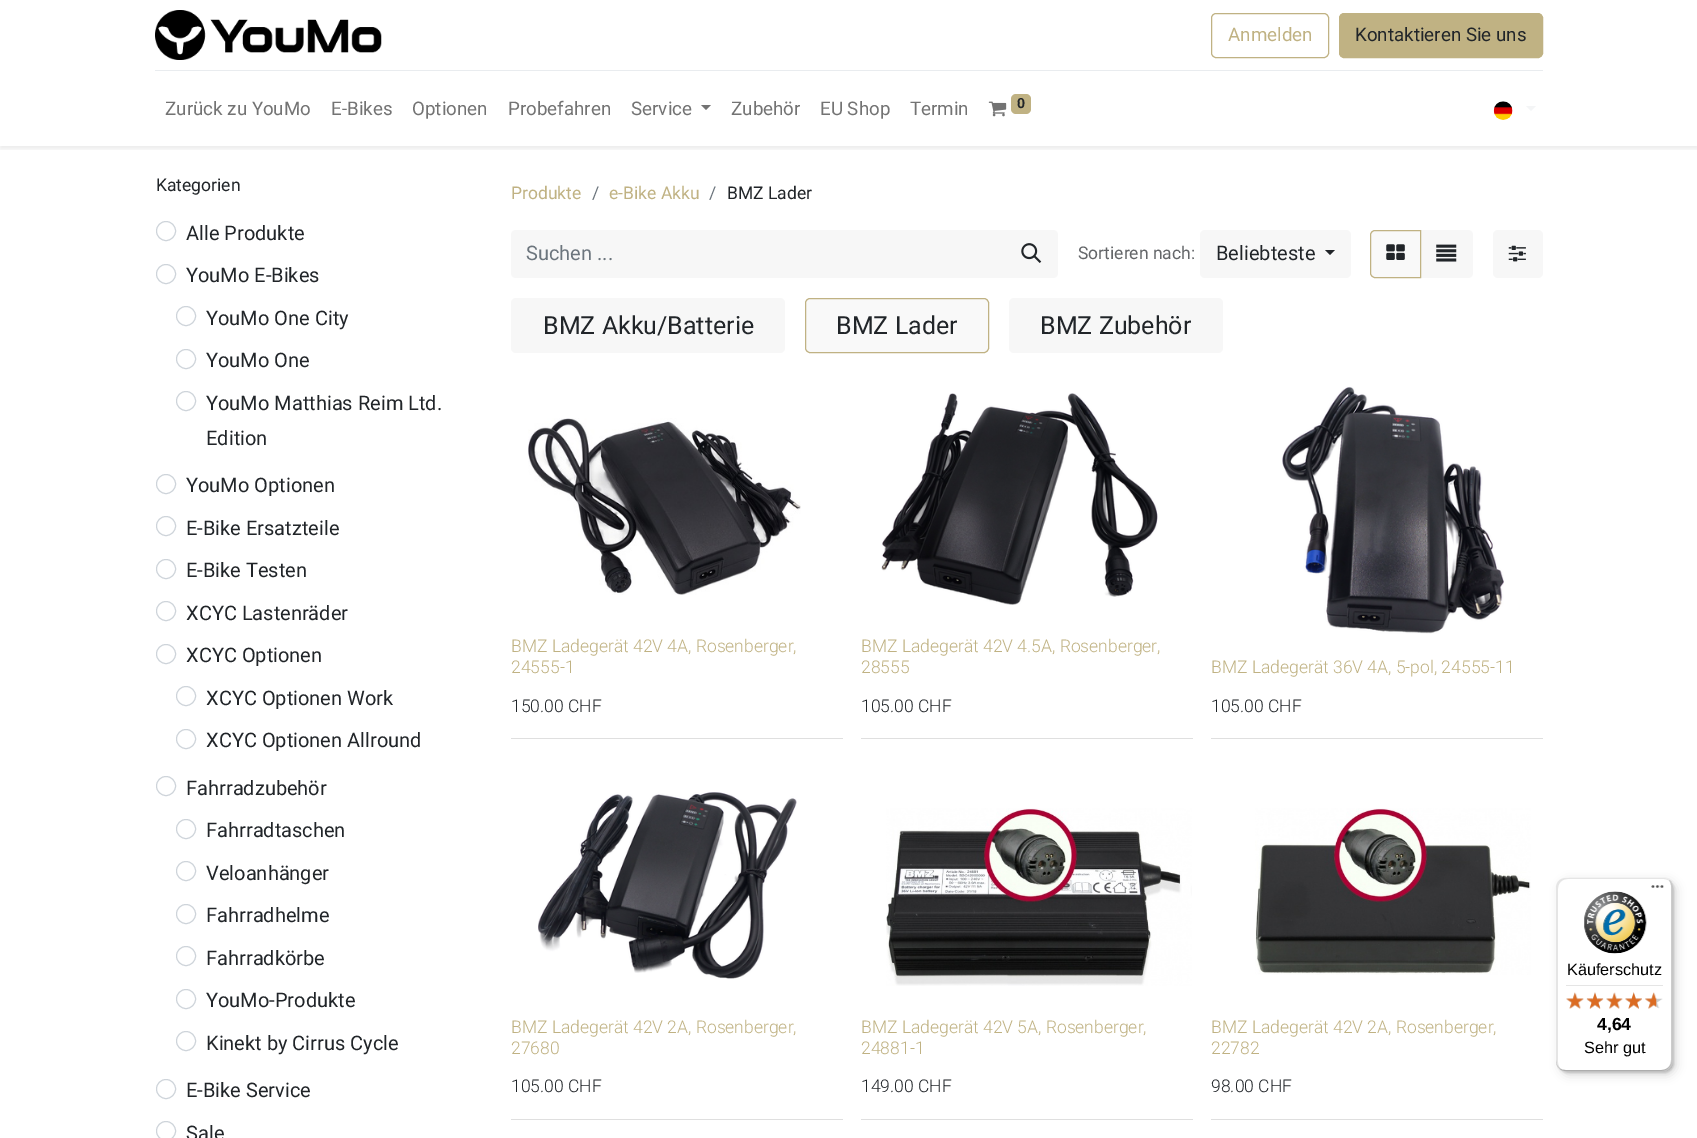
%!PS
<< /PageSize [1697 1138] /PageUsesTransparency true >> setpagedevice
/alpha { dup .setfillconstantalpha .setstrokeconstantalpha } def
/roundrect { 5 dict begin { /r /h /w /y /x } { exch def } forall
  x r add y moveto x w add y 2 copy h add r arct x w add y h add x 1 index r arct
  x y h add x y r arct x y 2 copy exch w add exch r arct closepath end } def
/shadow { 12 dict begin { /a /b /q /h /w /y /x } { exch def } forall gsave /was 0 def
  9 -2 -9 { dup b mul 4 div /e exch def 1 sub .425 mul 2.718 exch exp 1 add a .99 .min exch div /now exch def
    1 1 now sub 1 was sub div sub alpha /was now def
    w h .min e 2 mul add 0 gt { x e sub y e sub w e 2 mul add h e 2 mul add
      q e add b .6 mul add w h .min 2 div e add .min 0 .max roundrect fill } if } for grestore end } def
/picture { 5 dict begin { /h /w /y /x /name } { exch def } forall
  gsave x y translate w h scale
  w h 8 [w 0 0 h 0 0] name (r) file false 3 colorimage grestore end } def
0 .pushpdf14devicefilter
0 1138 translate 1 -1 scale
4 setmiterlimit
1 setgray
0 0 1697 1138 rectfill
gsave
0 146 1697 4 rectclip
0 setgray
0 3 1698 146 0 2.5 0.07 shadow
grestore
(img1.rgb) 155 10 227 50 picture
0.753 0.698 0.514 setrgbcolor
1211.5 13.5 117 44 4.5 roundrect stroke
/Roboto-Regular [18.75 0 0 -18.75 0 0] selectfont
1228 41 moveto (Anmelden) show
1339.5 13.5 203 44 4.5 roundrect gsave fill grestore
stroke
0.129 0.145 0.161 setrgbcolor
1355 41 moveto (Kontaktieren Sie uns) show
0.914 0.925 0.937 setrgbcolor
155 70 1388 1 rectfill
0.451 setgray
165 115 moveto (Zurück zu YouMo) show
331 115 moveto (E-Bikes) show
412 115 moveto (Optionen) show
508 115 moveto (Probefahren) show
631 115 moveto (Service) show
newpath 701 105 moveto 711 105 lineto 706 110 lineto closepath fill
731 115 moveto (Zubehör) show
820 115 moveto (EU Shop) show
910 115 moveto (Termin) show
(img2.rgb) 988 101 19 16 picture
0.753 0.698 0.514 setrgbcolor
1011 94 20 20 5 roundrect fill
/Roboto-Bold [14 0 0 -14 0 0] selectfont
0.129 0.145 0.161 setrgbcolor
1017 108 moveto (0) show
(img3.rgb) 1493 101 20 19 picture
0.957 0.961 0.965 setrgbcolor
newpath 1526 106 moveto 1536 106 lineto 1531 111 lineto closepath fill
/Roboto-Regular [17.5 0 0 -17.5 0 0] selectfont
0.129 0.145 0.161 setrgbcolor
156 191 moveto (Kategorien) show
0.808 0.831 0.855 setrgbcolor
newpath 166 231 9.5 0 360 arc closepath stroke
/Roboto-Regular [20 0 0 -20 0 0] selectfont
0.129 0.145 0.161 setrgbcolor
186 240 moveto (Alle Produkte) show
0.808 0.831 0.855 setrgbcolor
newpath 166 274 9.5 0 360 arc closepath stroke
0.129 0.145 0.161 setrgbcolor
186 282 moveto (YouMo E-Bikes) show
0.808 0.831 0.855 setrgbcolor
newpath 186 316 9.5 0 360 arc closepath stroke
0.129 0.145 0.161 setrgbcolor
206 325 moveto (YouMo One City) show
0.808 0.831 0.855 setrgbcolor
newpath 186 359 9.5 0 360 arc closepath stroke
0.129 0.145 0.161 setrgbcolor
206 367 moveto (YouMo One) show
0.808 0.831 0.855 setrgbcolor
newpath 186 401 9.5 0 360 arc closepath stroke
0.129 0.145 0.161 setrgbcolor
206 410 moveto (YouMo Matthias Reim Ltd.) show
206 445 moveto (Edition) show
0.808 0.831 0.855 setrgbcolor
newpath 166 484 9.5 0 360 arc closepath stroke
0.129 0.145 0.161 setrgbcolor
186 492 moveto (YouMo Optionen) show
0.808 0.831 0.855 setrgbcolor
newpath 166 526 9.5 0 360 arc closepath stroke
0.129 0.145 0.161 setrgbcolor
186 535 moveto (E-Bike Ersatzteile) show
0.808 0.831 0.855 setrgbcolor
newpath 166 569 9.5 0 360 arc closepath stroke
0.129 0.145 0.161 setrgbcolor
186 577 moveto (E-Bike Testen) show
0.808 0.831 0.855 setrgbcolor
newpath 166 611 9.5 0 360 arc closepath stroke
0.129 0.145 0.161 setrgbcolor
186 620 moveto (XCYC Lastenräder) show
0.808 0.831 0.855 setrgbcolor
newpath 166 654 9.5 0 360 arc closepath stroke
0.129 0.145 0.161 setrgbcolor
186 662 moveto (XCYC Optionen) show
0.808 0.831 0.855 setrgbcolor
newpath 186 696 9.5 0 360 arc closepath stroke
0.129 0.145 0.161 setrgbcolor
206 705 moveto (XCYC Optionen Work) show
0.808 0.831 0.855 setrgbcolor
newpath 186 739 9.5 0 360 arc closepath stroke
0.129 0.145 0.161 setrgbcolor
206 747 moveto (XCYC Optionen Allround) show
0.808 0.831 0.855 setrgbcolor
newpath 166 786 9.5 0 360 arc closepath stroke
0.129 0.145 0.161 setrgbcolor
186 795 moveto (Fahrradzubehör) show
0.808 0.831 0.855 setrgbcolor
newpath 186 829 9.5 0 360 arc closepath stroke
0.129 0.145 0.161 setrgbcolor
206 837 moveto (Fahrradtaschen) show
0.808 0.831 0.855 setrgbcolor
newpath 186 871 9.5 0 360 arc closepath stroke
0.129 0.145 0.161 setrgbcolor
206 880 moveto (Veloanhänger) show
0.808 0.831 0.855 setrgbcolor
newpath 186 914 9.5 0 360 arc closepath stroke
0.129 0.145 0.161 setrgbcolor
206 922 moveto (Fahrradhelme) show
0.808 0.831 0.855 setrgbcolor
newpath 186 956 9.5 0 360 arc closepath stroke
0.129 0.145 0.161 setrgbcolor
206 965 moveto (Fahrradkörbe) show
0.808 0.831 0.855 setrgbcolor
newpath 186 999 9.5 0 360 arc closepath stroke
0.129 0.145 0.161 setrgbcolor
206 1007 moveto (YouMo-Produkte) show
0.808 0.831 0.855 setrgbcolor
newpath 186 1041 9.5 0 360 arc closepath stroke
0.129 0.145 0.161 setrgbcolor
206 1050 moveto (Kinekt by Cirrus Cycle) show
0.808 0.831 0.855 setrgbcolor
newpath 166 1089 9.5 0 360 arc closepath stroke
0.129 0.145 0.161 setrgbcolor
186 1097 moveto (E-Bike Service) show
0.808 0.831 0.855 setrgbcolor
newpath 166 1131 9.5 0 360 arc closepath stroke
0.129 0.145 0.161 setrgbcolor
186 1140 moveto (Sale) show
/Roboto-Regular [17.5 0 0 -17.5 0 0] selectfont
0.753 0.698 0.514 setrgbcolor
511 199 moveto (Produkte) show
0.424 0.459 0.49 setrgbcolor
592 199 moveto (/) show
0.753 0.698 0.514 setrgbcolor
609 199 moveto (e-Bike Akku) show
0.424 0.459 0.49 setrgbcolor
709 199 moveto (/) show
0.129 0.145 0.161 setrgbcolor
727 199 moveto (BMZ Lader) show
0.969 setgray
newpath 516 230 moveto 1006 230 lineto 1006 278 lineto 516 278 lineto 513 278 511 276 511 273 curveto 511 235 lineto 511 232 513 230 516 230 curveto closepath fill
/Roboto-Regular [20 0 0 -20 0 0] selectfont
0.424 0.459 0.49 setrgbcolor
526 260 moveto (Suchen ...) show
0.969 setgray
newpath 1005 230 moveto 1053 230 lineto 1056 230 1058 232 1058 235 curveto 1058 273 lineto 1058 276 1056 278 1053 278 curveto 1005 278 lineto closepath fill
(img4.rgb) 1021 243 21 20 picture
/Roboto-Regular [17.5 0 0 -17.5 0 0] selectfont
0.392 0.4 0.412 setrgbcolor
1078 259 moveto (Sortieren nach:) show
0.969 setgray
1200 230 151 48 5 roundrect fill
/Roboto-Regular [20 0 0 -20 0 0] selectfont
0.129 0.145 0.161 setrgbcolor
1216 260 moveto (Beliebteste) show
newpath 1325 250 moveto 1335 250 lineto 1330 255 lineto closepath fill
0.969 setgray
newpath 1420 230 moveto 1468 230 lineto 1471 230 1473 232 1473 235 curveto 1473 273 lineto 1473 276 1471 278 1468 278 curveto 1420 278 lineto closepath fill
0.976 setgray
newpath 1375 230.5 moveto 1420.5 230.5 lineto 1420.5 277.5 lineto 1375 277.5 lineto 1372.5 277.5 1370.5 275.5 1370.5 273 curveto 1370.5 235 lineto 1370.5 232.5 1372.5 230.5 1375 230.5 curveto closepath gsave fill grestore
0.753 0.698 0.514 setrgbcolor
stroke
(img5.rgb) 1386 244 19 16 picture
(img6.rgb) 1436 244 21 18 picture
0.969 setgray
1493 230 50 48 5 roundrect fill
(img7.rgb) 1508 245 18 17 picture
511 298 274 55 5 roundrect fill
/Roboto-Regular [25 0 0 -25 0 0] selectfont
0.129 0.145 0.161 setrgbcolor
543 334 moveto (BMZ Akku/Batterie) show
0.976 setgray
805.5 298.5 183 54 4.5 roundrect gsave fill grestore
0.753 0.698 0.514 setrgbcolor
stroke
0.129 0.145 0.161 setrgbcolor
836 334 moveto (BMZ Lader) show
0.969 setgray
1009 298 214 55 5 roundrect fill
0.129 0.145 0.161 setrgbcolor
1040 334 moveto (BMZ Zubehör) show
0.875 setgray
511 738 332 1 rectfill
(img8.rgb) 528 418 273 177 picture
/Roboto-Light [17.5 0 0 -17.5 0 0] selectfont
0.753 0.698 0.514 setrgbcolor
511 652 moveto (BMZ Ladegerät 42V 4A, Rosenberger,) show
511 673 moveto (24555-1) show
0.129 0.145 0.161 setrgbcolor
511 712 moveto (150.00 CHF) show
0.875 setgray
861 738 332 1 rectfill
(img9.rgb) 881 393 277 212 picture
0.753 0.698 0.514 setrgbcolor
861 652 moveto (BMZ Ladegerät 42V 4.5A, Rosenberger,) show
861 673 moveto (28555) show
0.129 0.145 0.161 setrgbcolor
861 712 moveto (105.00 CHF) show
0.875 setgray
1211 738 332 1 rectfill
(img10.rgb) 1282 386 222 248 picture
0.753 0.698 0.514 setrgbcolor
1211 673 moveto (BMZ Ladegerät 36V 4A, 5-pol, 24555-11) show
0.129 0.145 0.161 setrgbcolor
1211 712 moveto (105.00 CHF) show
0.875 setgray
511 1119 332 1 rectfill
(img11.rgb) 538 792 259 187 picture
0.753 0.698 0.514 setrgbcolor
511 1033 moveto (BMZ Ladegerät 42V 2A, Rosenberger,) show
511 1054 moveto (27680) show
0.129 0.145 0.161 setrgbcolor
511 1092 moveto (105.00 CHF) show
0.875 setgray
861 1119 332 1 rectfill
(img12.rgb) 886 808 306 178 picture
0.753 0.698 0.514 setrgbcolor
861 1033 moveto (BMZ Ladegerät 42V 5A, Rosenberger,) show
861 1054 moveto (24881-1) show
0.129 0.145 0.161 setrgbcolor
861 1092 moveto (149.00 CHF) show
0.875 setgray
1211 1119 332 1 rectfill
(img13.rgb) 1255 808 276 167 picture
0.753 0.698 0.514 setrgbcolor
1211 1033 moveto (BMZ Ladegerät 42V 2A, Rosenberger,) show
1211 1054 moveto (22782) show
0.129 0.145 0.161 setrgbcolor
1211 1092 moveto (98.00 CHF) show
0 setgray
1560 881 116 194 10 5 0.15 shadow
1558 879 116 194 10 1 0.15 shadow
1 setgray
1556 878 117 193 10 roundrect fill
0.898 setgray
newpath 1568 879 moveto 1664 879 lineto 1666 879 1669 880 1671 882 curveto 1669 879 1666 878 1663 878 curveto 1566 878 lineto 1560 878 1556 882 1556 888 curveto 1556 1061 lineto 1556 1065 1558 1068 1562 1070 curveto 1559 1068 1558 1065 1558 1062 curveto 1558 889 lineto 1558 883 1562 879 1568 879 curveto closepath fill
0.2 alpha
0 setgray
newpath 1560 1069 moveto 1561 1070 1564 1071 1566 1071 curveto 1663 1071 lineto 1669 1071 1673 1067 1673 1061 curveto 1673 888 lineto 1673 885 1671 882 1669 880 curveto 1670 882 1671 884 1671 886 curveto 1671 1060 lineto 1671 1066 1667 1070 1661 1070 curveto 1565 1070 lineto 1563 1070 1561 1070 1560 1069 curveto closepath fill
0.196 setgray
newpath 1556 1060 moveto 1556 1061 lineto 1556 1067 1560 1071 1566 1071 curveto 1663 1071 lineto 1669 1071 1673 1067 1673 1061 curveto 1673 888 lineto 1673 885 1672 882 1670 880 curveto 1671 882 1672 884 1672 887 curveto 1672 1060 lineto 1672 1066 1667 1070 1662 1070 curveto 1566 1070 lineto 1560 1070 1556 1066 1556 1060 curveto closepath fill
0.3 alpha
1 setgray
newpath 1662 1071 moveto 1663 1071 lineto 1669 1071 1673 1067 1673 1061 curveto 1673 888 lineto 1673 885 1672 882 1670 880 curveto 1671 882 1672 884 1672 887 curveto 1672 1061 lineto 1672 1066 1667 1071 1662 1071 curveto closepath fill
1 alpha
(img14.rgb) 1651 885 13 3 picture
(img15.rgb) 1584 891 63 63 picture
/LiberationSans-Regular [16.25 0 0 -16.25 0 0] selectfont
0 setgray
1567 975 moveto (Käuferschutz) show
0.898 setgray
1566 985 97 1 rectfill
(img16.rgb) 1566 993 18 15 picture
(img17.rgb) 1587 992 16 17 picture
(img18.rgb) 1606 993 17 16 picture
(img19.rgb) 1625 992 17 17 picture
(img20.rgb) 1645 993 18 16 picture
(img21.rgb) 1566 992 18 17 picture
(img22.rgb) 1586 992 18 17 picture
(img23.rgb) 1606 992 17 17 picture
(img24.rgb) 1625 992 17 17 picture
(img25.rgb) 1645 992 12 17 picture
/LiberationSans-Bold [17.5 0 0 -17.5 0 0] selectfont
0 setgray
1597 1030 moveto (4,64) show
/LiberationSans-Regular [16.25 0 0 -16.25 0 0] selectfont
1584 1053 moveto (Sehr gut) show
.poppdf14devicefilter showpage
